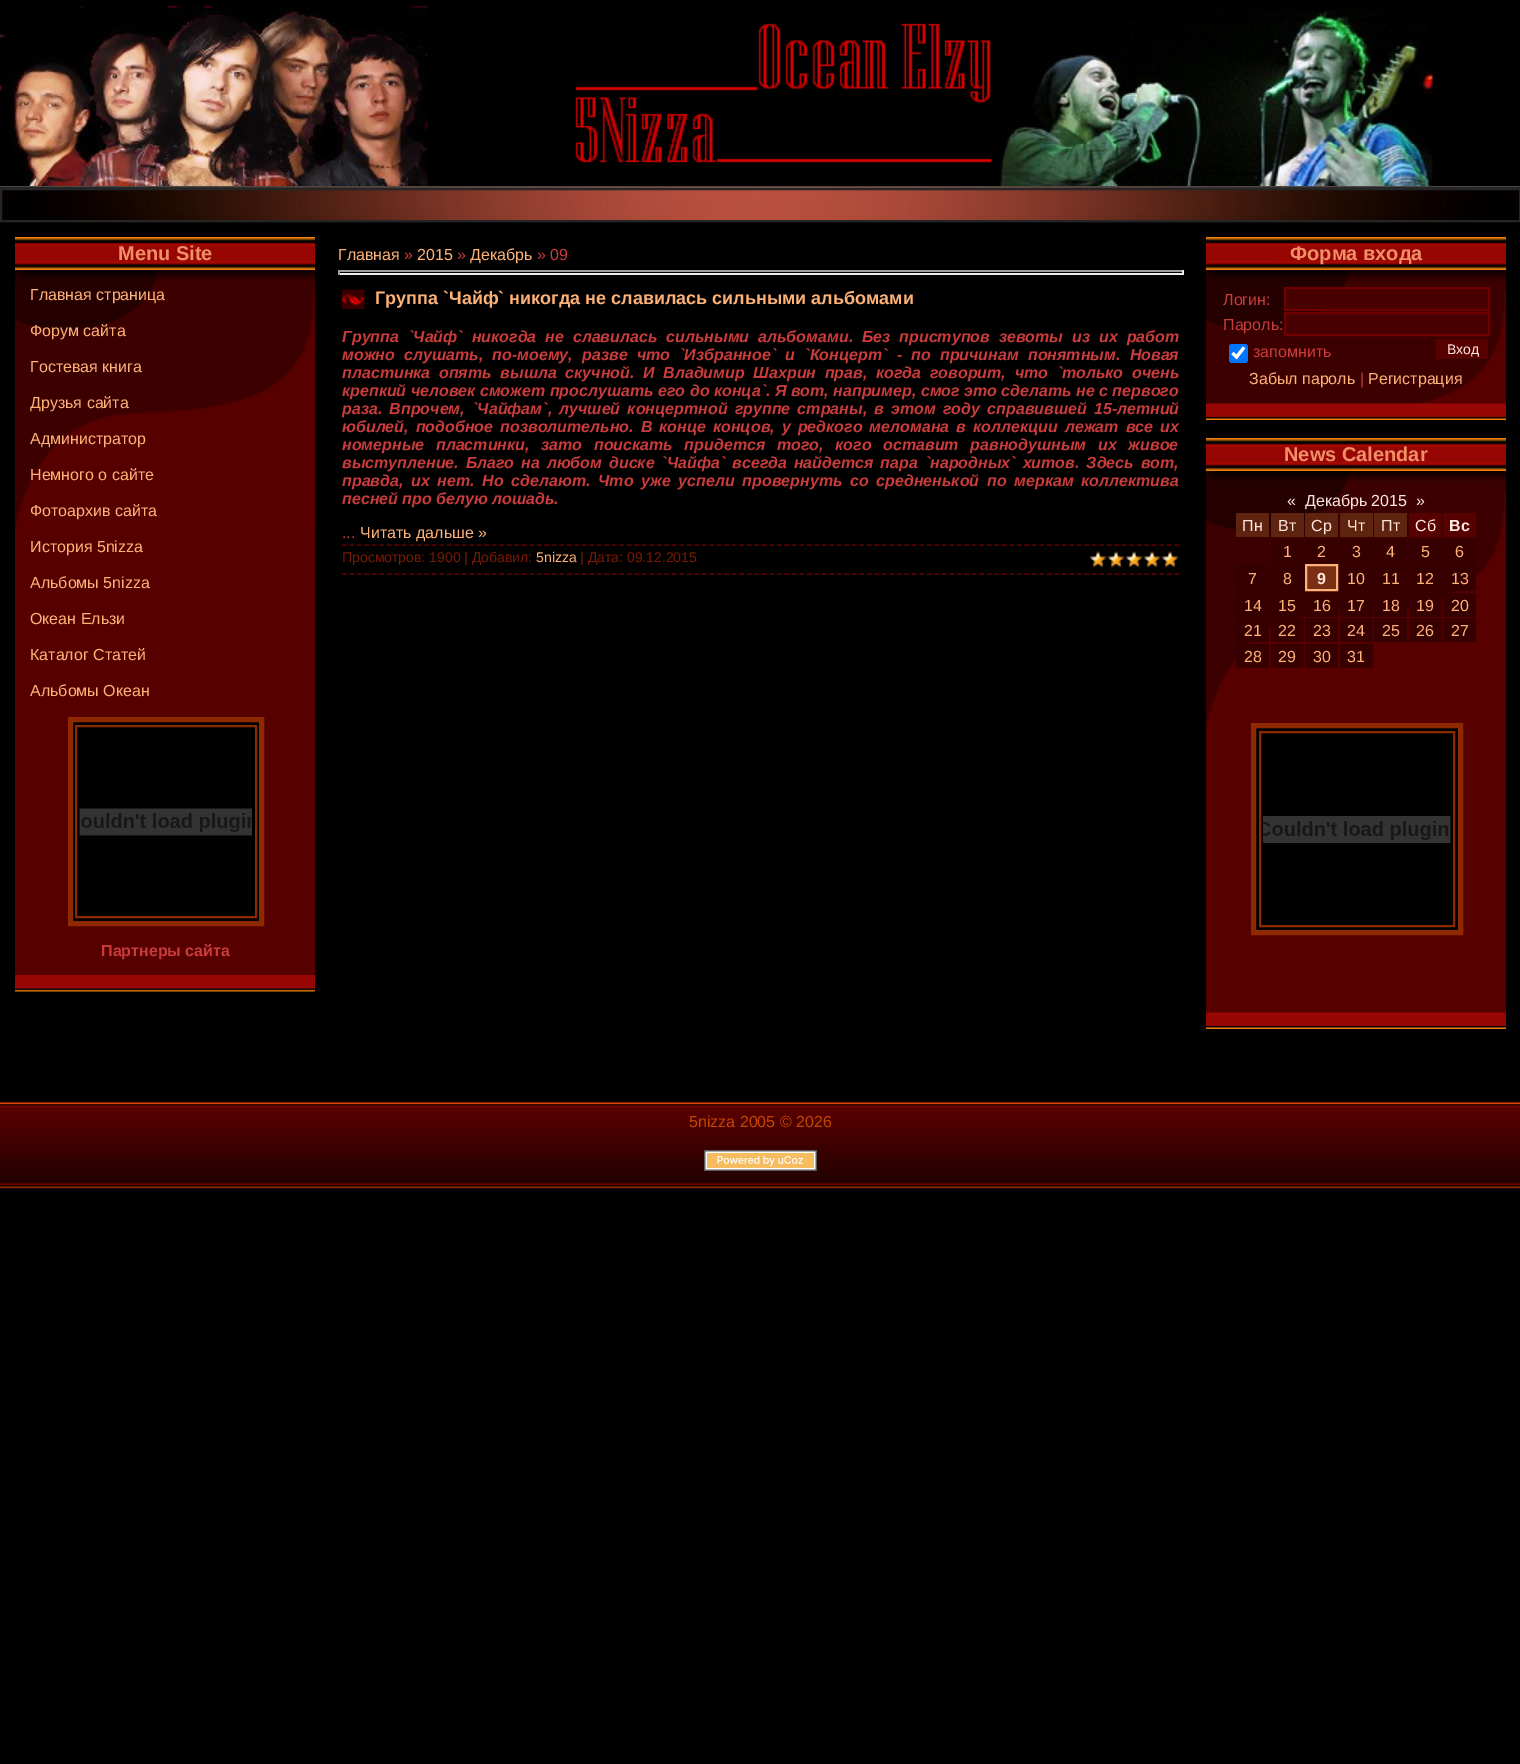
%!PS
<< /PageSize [1520 1764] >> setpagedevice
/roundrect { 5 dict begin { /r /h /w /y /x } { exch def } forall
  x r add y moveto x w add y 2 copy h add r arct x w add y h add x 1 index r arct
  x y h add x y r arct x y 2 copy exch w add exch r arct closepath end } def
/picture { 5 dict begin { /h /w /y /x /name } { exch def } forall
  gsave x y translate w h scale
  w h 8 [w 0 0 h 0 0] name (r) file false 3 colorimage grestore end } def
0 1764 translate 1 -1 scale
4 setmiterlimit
0 setgray
0 0 1520 1764 rectfill
0.286 setgray
0 186 1520 2 rectfill
(img1.rgb) 0 5 1433 181 picture
(img2.rgb) 0 187 1520 33 picture
0.149 setgray
2 setlinewidth
1 189 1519 32 rectstroke
0.945 0.502 0.031 setrgbcolor
15 237 300 33 rectfill
(img3.rgb) 15 238 300 31 picture
/LiberationSans-Bold [20 0 0 -20 0 0] selectfont
0.945 0.565 0.408 setrgbcolor
118 260 moveto (Menu Site) show
0.341 0 0 setrgbcolor
15 527 300 448 rectfill
(img4.rgb) 15 270 300 257 picture
/LiberationSans-Regular [16 0 0 -16 0 0] selectfont
1 0.698 0.467 setrgbcolor
30 300 moveto (Главная страница) show
30 336 moveto (Форум сайта) show
30 372 moveto (Гостевая книга) show
30 408 moveto (Друзья сайта) show
30 444 moveto (Администратор) show
30 480 moveto (Немного о сайте) show
30 516 moveto (Фотоархив сайта) show
30 552 moveto (История 5nizza) show
30 588 moveto (Альбомы 5nizza) show
30 624 moveto (Океан Ельзи) show
30 660 moveto (Каталог Статей) show
30 696 moveto (Альбомы Океан) show
0 setgray
newpath 70.5 719.5 moveto 261.5 719.5 lineto 261.5 923.5 lineto 70.5 923.5 lineto closepath gsave fill grestore
0.561 0.165 0 setrgbcolor
5 setlinewidth
stroke
2 setlinewidth
76 726 180 191 rectstroke
(img5.rgb) 79 808 173 28 picture
/LiberationSans-Bold [16 0 0 -16 0 0] selectfont
0.792 0.235 0.235 setrgbcolor
101 956 moveto (Партнеры сайта) show
(img6.rgb) 15 975 300 17 picture
/LiberationSans-Regular [16 0 0 -16 0 0] selectfont
1 0.698 0.467 setrgbcolor
338 260 moveto (Главная) show
0.792 0.235 0.235 setrgbcolor
404 260 moveto (») show
1 0.698 0.467 setrgbcolor
417 260 moveto (2015) show
0.792 0.235 0.235 setrgbcolor
457 260 moveto (») show
1 0.698 0.467 setrgbcolor
470 260 moveto (Декабрь) show
0.792 0.235 0.235 setrgbcolor
537 260 moveto (» 09) show
0.624 setgray
338 270 846 2 rectfill
0.933 setgray
1182 270 2 5 rectfill
338 273 846 2 rectfill
0.624 setgray
338 270 2 5 rectfill
(img7.rgb) 342 289 23 20 picture
/LiberationSans-Bold [18 0 0 -18 0 0] selectfont
1 0.698 0.467 setrgbcolor
375 304 moveto (Группа `Чайф` никогда не славилась сильными альбомами) show
/LiberationSans-BoldItalic [16 0 0 -16 0 0] selectfont
0.792 0.235 0.235 setrgbcolor
342 342 moveto 4.5 0 32 (Группа `Чайф` никогда не славилась сильными альбомами. Без приступов зевоты из их работ) widthshow
342 360 moveto 4.75 0 32 (можно слушать, по-моему, разве что `Избранное` и `Концерт` - по причинам понятным. Новая) widthshow
342 378 moveto 4.25 0 32 (пластинка опять вышла скучной. И Владимир Шахрин прав, когда говорит, что `только очень) widthshow
342 396 moveto (крепкий человек сможет прослушать его до конца`. Я вот, например, смог это сделать не с первого) show
342 414 moveto 2.75 0 32 (раза. Впрочем, `Чайфам`, лучшей концертной группе страны, в этом году справившей 15-летний) widthshow
342 432 moveto 2.6 0 32 (юбилей, подобное позволительно. В конце концов, у редкого меломана в коллекции лежат все их) widthshow
342 450 moveto 7.25 0 32 (номерные пластинки, зато поискать придется того, кого оставит равнодушным их живое) widthshow
342 468 moveto 2.5 0 32 (выступление. Благо на любом диске `Чайфа` всегда найдется пара `народных` хитов. Здесь вот,) widthshow
342 486 moveto 3.25 0 32 (правда, их нет. Но сделают. Что уже успели провернуть со средненькой по меркам коллектива) widthshow
342 504 moveto (песней про белую лошадь.) show
/LiberationSans-Regular [16 0 0 -16 0 0] selectfont
342 538 moveto (...) show
1 0.698 0.467 setrgbcolor
360 538 moveto (Читать дальше ») show
0.337 0 0 setrgbcolor
1.5 setlinewidth
[4.5 3] 0 setdash
newpath 342 545 moveto 1179 545 lineto stroke
newpath 342 574 moveto 1179 574 lineto stroke
/LiberationSans-Regular [14 0 0 -14 0 0] selectfont
0.475 0.106 0.016 setrgbcolor
342 562 moveto (Просмотров: 1900 | Добавил:) show
1 0.698 0.467 setrgbcolor
536 562 moveto (5nizza) show
0.475 0.106 0.016 setrgbcolor
580 562 moveto (| Дата: 09.12.2015) show
(img8.rgb) 1090 551 89 17 picture
(img9.rgb) 1089 551 90 17 picture
0.945 0.502 0.031 setrgbcolor
1206 237 300 33 rectfill
(img10.rgb) 1206 238 300 31 picture
/LiberationSans-Bold [20 0 0 -20 0 0] selectfont
0.945 0.565 0.408 setrgbcolor
1290 260 moveto (Форма входа) show
(img11.rgb) 1206 270 300 134 picture
/LiberationSans-Regular [16 0 0 -16 0 0] selectfont
0.792 0.235 0.235 setrgbcolor
1223 305 moveto (Логин:) show
0.282 0 0 setrgbcolor
newpath 1285 288 moveto 1489 288 lineto 1489 310 lineto 1285 310 lineto closepath gsave fill grestore
0.439 0 0 setrgbcolor
2 setlinewidth
[] 0 setdash
stroke
0.792 0.235 0.235 setrgbcolor
1223 330 moveto (Пароль:) show
0.282 0 0 setrgbcolor
newpath 1285 313 moveto 1489 313 lineto 1489 335 lineto 1285 335 lineto closepath gsave fill grestore
0.439 0 0 setrgbcolor
stroke
0 0.459 1 setrgbcolor
1229 344 19 19 3 roundrect fill
1 setgray
3.1 setlinewidth
newpath 1232.5 353 moveto 1236.5 357 lineto 1244 347.5 lineto stroke
0.792 0.235 0.235 setrgbcolor
1253 357 moveto (запомнить) show
0.337 0 0 setrgbcolor
1438 339 50 20 rectfill
0.224 0 0 setrgbcolor
1488 339 2 21 rectfill
1436 359 54 2 rectfill
0.337 0 0 setrgbcolor
1436 339 2 21 rectfill
/LiberationSans-Regular [14 0 0 -14 0 0] selectfont
1 0.906 0.875 setrgbcolor
1447 354 moveto (Вход) show
/LiberationSans-Regular [16 0 0 -16 0 0] selectfont
1 0.698 0.467 setrgbcolor
1249 384 moveto (Забыл пароль) show
0.792 0.235 0.235 setrgbcolor
1360 384 moveto (|) show
1 0.698 0.467 setrgbcolor
1368 384 moveto (Регистрация) show
(img12.rgb) 1206 403 300 17 picture
0.945 0.502 0.031 setrgbcolor
1206 438 300 33 rectfill
(img10.rgb) 1206 439 300 31 picture
/LiberationSans-Bold [20 0 0 -20 0 0] selectfont
0.945 0.565 0.408 setrgbcolor
1284 461 moveto (News Calendar) show
0.341 0 0 setrgbcolor
1206 728 300 285 rectfill
(img13.rgb) 1206 471 300 257 picture
/LiberationSans-Regular [16 0 0 -16 0 0] selectfont
1 0.906 0.875 setrgbcolor
1287 506 moveto («) show
1305 506 moveto (Декабрь 2015) show
1416 506 moveto (») show
0.369 0.141 0.063 setrgbcolor
1236 513 33 24 rectfill
1 0.906 0.875 setrgbcolor
1242 531 moveto (Пн) show
0.369 0.141 0.063 setrgbcolor
1271 513 33 24 rectfill
1 0.906 0.875 setrgbcolor
1278 531 moveto (Вт) show
0.369 0.141 0.063 setrgbcolor
1305 513 33 24 rectfill
1 0.906 0.875 setrgbcolor
1311 531 moveto (Ср) show
0.369 0.141 0.063 setrgbcolor
1340 513 33 24 rectfill
1 0.906 0.875 setrgbcolor
1347 531 moveto (Чт) show
0.369 0.141 0.063 setrgbcolor
1374 513 33 24 rectfill
1 0.906 0.875 setrgbcolor
1381 531 moveto (Пт) show
0.337 0 0 setrgbcolor
1409 513 33 24 rectfill
1 0.906 0.875 setrgbcolor
1415 531 moveto (Сб) show
0.337 0 0 setrgbcolor
1443 513 33 24 rectfill
/LiberationSans-Bold [16 0 0 -16 0 0] selectfont
1 0.906 0.875 setrgbcolor
1449 531 moveto (Вс) show
0.212 0 0 setrgbcolor
1271 539 33 24 rectfill
/LiberationSans-Regular [16 0 0 -16 0 0] selectfont
1 0.698 0.467 setrgbcolor
1283 557 moveto (1) show
0.212 0 0 setrgbcolor
1305 539 33 24 rectfill
1 0.698 0.467 setrgbcolor
1317 557 moveto (2) show
0.212 0 0 setrgbcolor
1340 539 33 24 rectfill
1 0.698 0.467 setrgbcolor
1352 557 moveto (3) show
0.212 0 0 setrgbcolor
1374 539 33 24 rectfill
1 0.698 0.467 setrgbcolor
1386 557 moveto (4) show
0.212 0 0 setrgbcolor
1409 539 33 24 rectfill
1 0.698 0.467 setrgbcolor
1421 557 moveto (5) show
0.212 0 0 setrgbcolor
1443 539 33 24 rectfill
1 0.698 0.467 setrgbcolor
1455 557 moveto (6) show
0.212 0 0 setrgbcolor
1236 564 33 27 rectfill
1 0.698 0.467 setrgbcolor
1248 584 moveto (7) show
0.212 0 0 setrgbcolor
1271 564 33 27 rectfill
1 0.698 0.467 setrgbcolor
1283 584 moveto (8) show
0.478 0.184 0.082 setrgbcolor
newpath 1306 565 moveto 1337 565 lineto 1337 590 lineto 1306 590 lineto closepath gsave fill grestore
1 0.698 0.467 setrgbcolor
2 setlinewidth
stroke
/LiberationSans-Bold [16 0 0 -16 0 0] selectfont
1 0.906 0.875 setrgbcolor
1317 584 moveto (9) show
0.212 0 0 setrgbcolor
1340 564 33 27 rectfill
/LiberationSans-Regular [16 0 0 -16 0 0] selectfont
1 0.698 0.467 setrgbcolor
1347 584 moveto (10) show
0.212 0 0 setrgbcolor
1374 564 33 27 rectfill
1 0.698 0.467 setrgbcolor
1382 584 moveto (11) show
0.212 0 0 setrgbcolor
1409 564 33 27 rectfill
1 0.698 0.467 setrgbcolor
1416 584 moveto (12) show
0.212 0 0 setrgbcolor
1443 564 33 27 rectfill
1 0.698 0.467 setrgbcolor
1451 584 moveto (13) show
0.212 0 0 setrgbcolor
1236 593 33 24 rectfill
1 0.698 0.467 setrgbcolor
1244 611 moveto (14) show
0.212 0 0 setrgbcolor
1271 593 33 24 rectfill
1 0.698 0.467 setrgbcolor
1278 611 moveto (15) show
0.212 0 0 setrgbcolor
1305 593 33 24 rectfill
1 0.698 0.467 setrgbcolor
1313 611 moveto (16) show
0.212 0 0 setrgbcolor
1340 593 33 24 rectfill
1 0.698 0.467 setrgbcolor
1347 611 moveto (17) show
0.212 0 0 setrgbcolor
1374 593 33 24 rectfill
1 0.698 0.467 setrgbcolor
1382 611 moveto (18) show
0.212 0 0 setrgbcolor
1409 593 33 24 rectfill
1 0.698 0.467 setrgbcolor
1416 611 moveto (19) show
0.212 0 0 setrgbcolor
1443 593 33 24 rectfill
1 0.698 0.467 setrgbcolor
1451 611 moveto (20) show
0.212 0 0 setrgbcolor
1236 618 33 24 rectfill
1 0.698 0.467 setrgbcolor
1244 636 moveto (21) show
0.212 0 0 setrgbcolor
1271 618 33 24 rectfill
1 0.698 0.467 setrgbcolor
1278 636 moveto (22) show
0.212 0 0 setrgbcolor
1305 618 33 24 rectfill
1 0.698 0.467 setrgbcolor
1313 636 moveto (23) show
0.212 0 0 setrgbcolor
1340 618 33 24 rectfill
1 0.698 0.467 setrgbcolor
1347 636 moveto (24) show
0.212 0 0 setrgbcolor
1374 618 33 24 rectfill
1 0.698 0.467 setrgbcolor
1382 636 moveto (25) show
0.212 0 0 setrgbcolor
1409 618 33 24 rectfill
1 0.698 0.467 setrgbcolor
1416 636 moveto (26) show
0.212 0 0 setrgbcolor
1443 618 33 24 rectfill
1 0.698 0.467 setrgbcolor
1451 636 moveto (27) show
0.212 0 0 setrgbcolor
1236 644 33 24 rectfill
1 0.698 0.467 setrgbcolor
1244 662 moveto (28) show
0.212 0 0 setrgbcolor
1271 644 33 24 rectfill
1 0.698 0.467 setrgbcolor
1278 662 moveto (29) show
0.212 0 0 setrgbcolor
1305 644 33 24 rectfill
1 0.698 0.467 setrgbcolor
1313 662 moveto (30) show
0.212 0 0 setrgbcolor
1340 644 33 24 rectfill
1 0.698 0.467 setrgbcolor
1347 662 moveto (31) show
0 setgray
newpath 1253.5 725.5 moveto 1460.5 725.5 lineto 1460.5 932.5 lineto 1253.5 932.5 lineto closepath gsave fill grestore
0.561 0.165 0 setrgbcolor
5 setlinewidth
stroke
2 setlinewidth
1260 732 194 194 rectstroke
(img14.rgb) 1263 816 188 27 picture
(img15.rgb) 1206 1012 300 17 picture
(img16.rgb) 0 1080 1520 150 picture
0.769 0.271 0 setrgbcolor
689 1127 moveto (5nizza 2005 © 2026) show
(img17.rgb) 704 1150 113 21 picture
showpage
